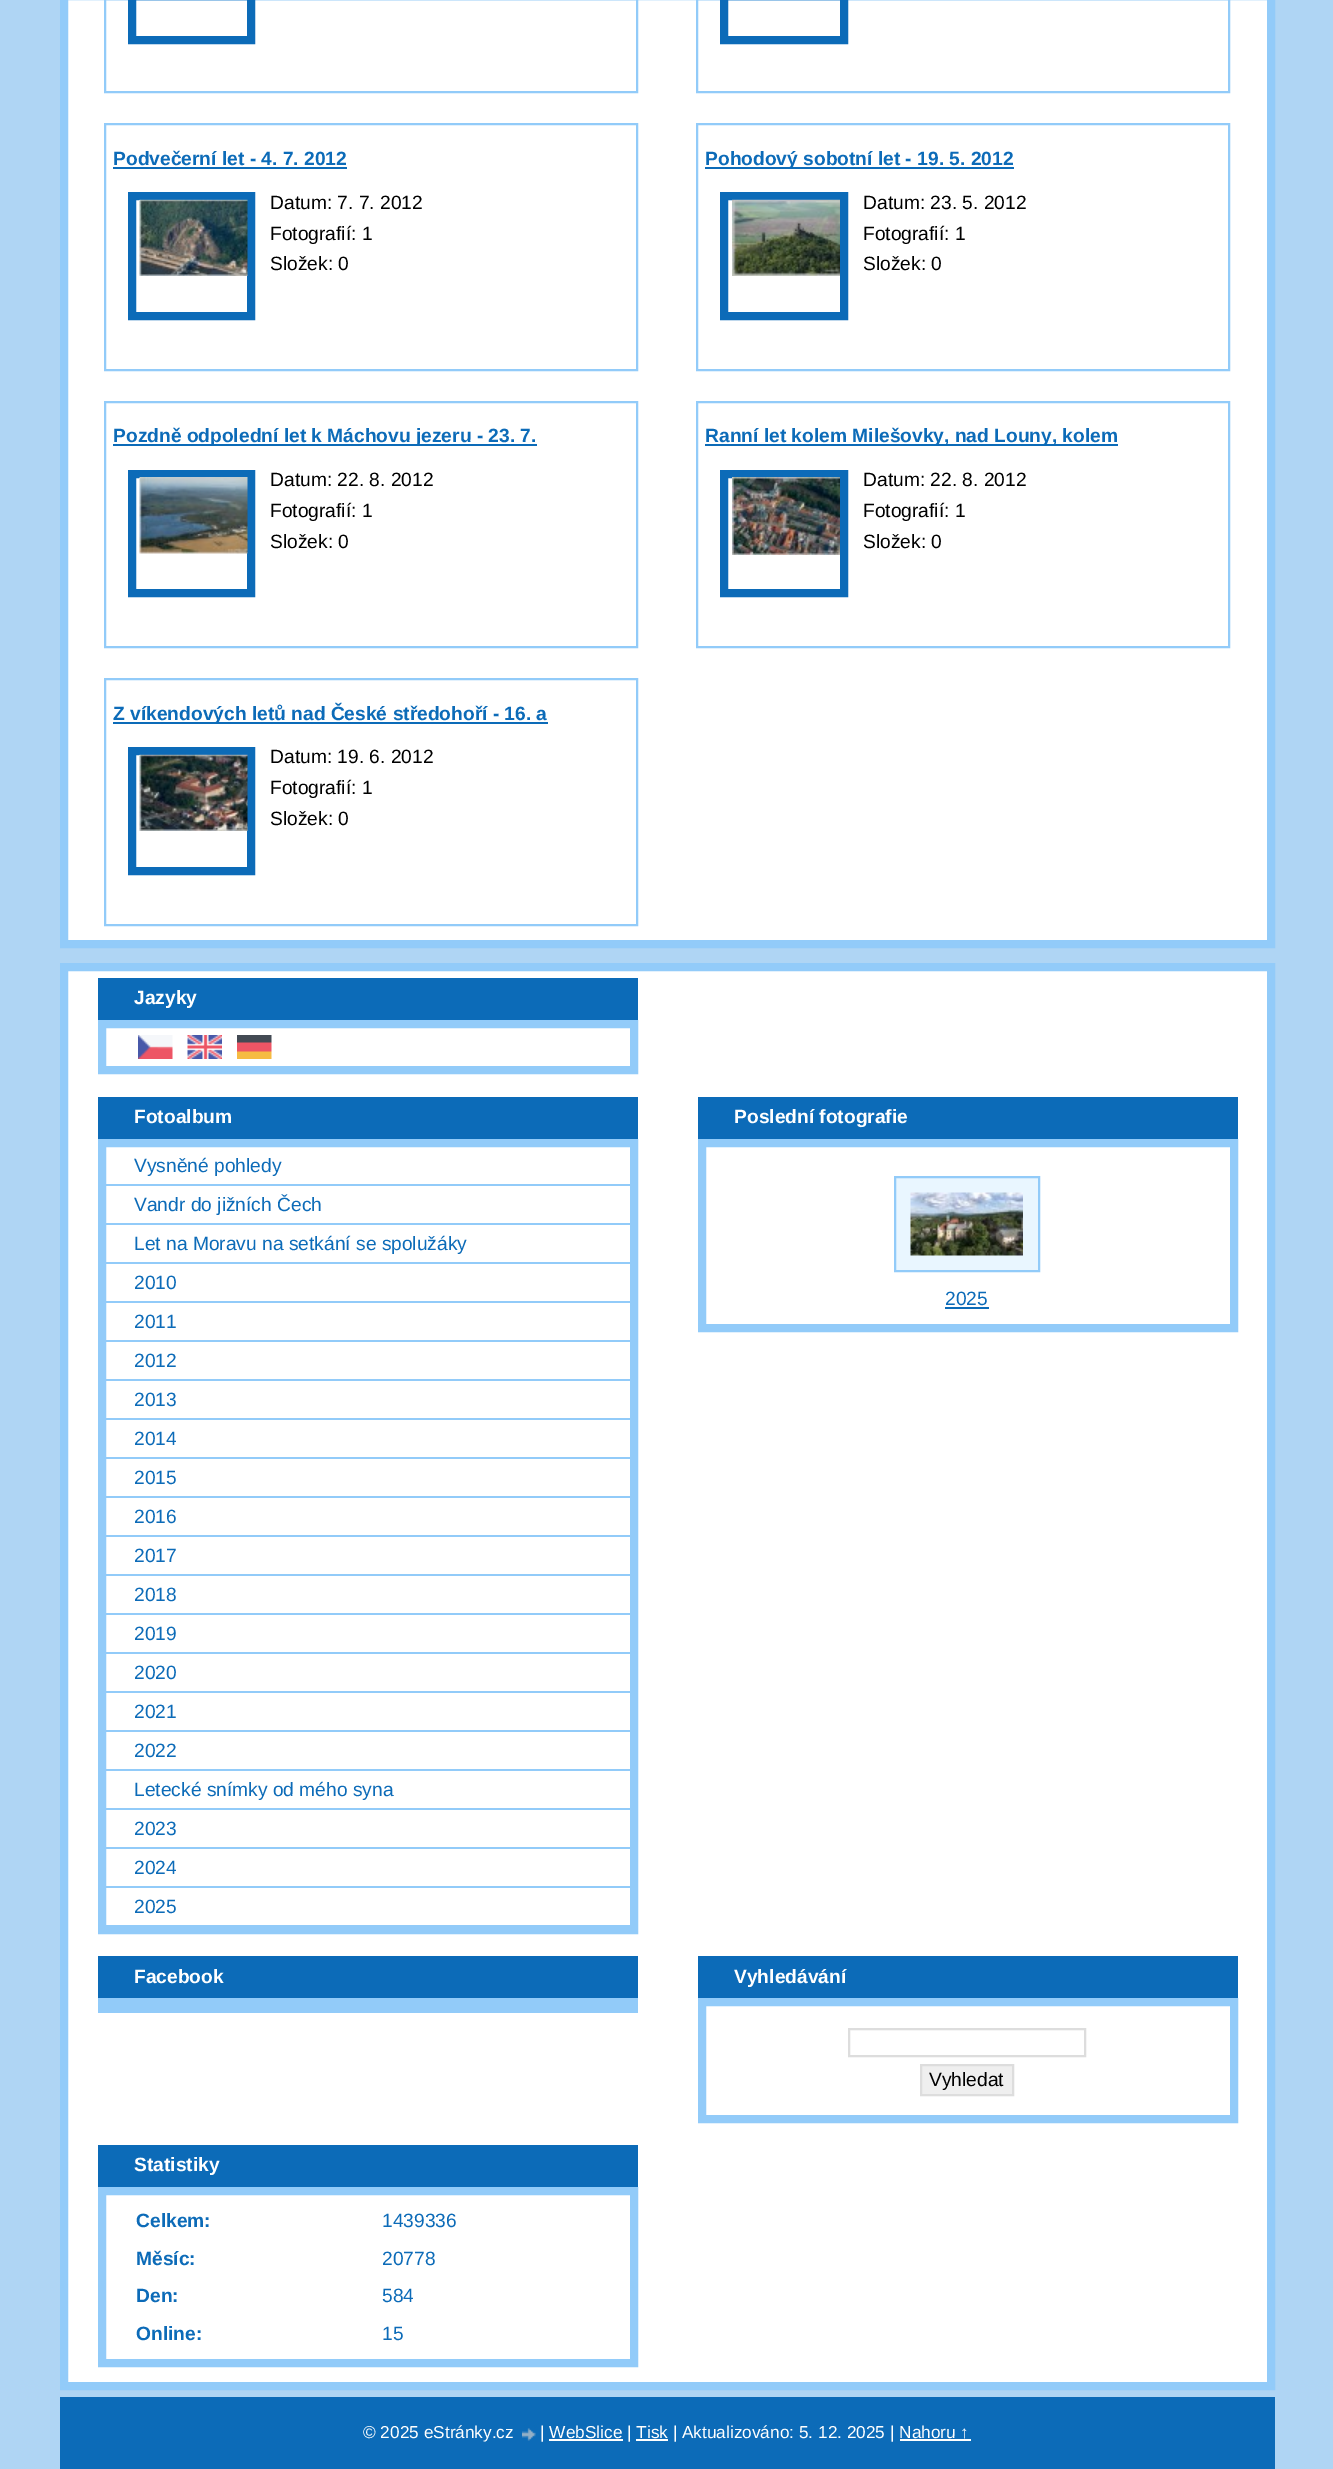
%!PS
<< /PageSize [1333 2469] >> setpagedevice
/picture { 5 dict begin { /h /w /y /x /name } { exch def } forall
  gsave x y translate w h scale
  w h 8 [w 0 0 h 0 0] name (r) file false 3 colorimage grestore end } def
0 2469 translate 1 -1 scale
4 setmiterlimit
0.686 0.835 0.957 setrgbcolor
0 0 1333 2469 rectfill
1 setgray
newpath 64 -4 moveto 1271 -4 lineto 1271 944 lineto 64 944 lineto closepath gsave fill grestore
0.573 0.796 0.976 setrgbcolor
8 setlinewidth
stroke
2 setlinewidth
105 -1 532 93 rectstroke
0.047 0.42 0.722 setrgbcolor
8 setlinewidth
132 -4 119 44 rectstroke
0.573 0.796 0.976 setrgbcolor
2 setlinewidth
697 -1 532 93 rectstroke
0.047 0.42 0.722 setrgbcolor
8 setlinewidth
724 -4 120 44 rectstroke
0.573 0.796 0.976 setrgbcolor
2 setlinewidth
105 124 532 246 rectstroke
/LiberationSans-Bold [19.2 0 0 -19.2 0 0] selectfont
0.047 0.42 0.722 setrgbcolor
113 165 moveto (Podvečerní let - 4. 7. 2012) show
113 167 234 2 rectfill
/LiberationSans-Regular [19.2 0 0 -19.2 0 0] selectfont
0 setgray
270 209 moveto (Datum: 7. 7. 2012) show
270 240 moveto (Fotografií: 1) show
270 270 moveto (Složek: 0) show
0.047 0.42 0.722 setrgbcolor
8 setlinewidth
132 196 119 120 rectstroke
(img1.rgb) 139 199 109 77 picture
0.573 0.796 0.976 setrgbcolor
2 setlinewidth
697 124 532 246 rectstroke
0.047 0.42 0.722 setrgbcolor
705 167 309 2 rectfill
/LiberationSans-Bold [19.2 0 0 -19.2 0 0] selectfont
705 165 moveto (Pohodový sobotní let - 19. 5. 2012) show
/LiberationSans-Regular [19.2 0 0 -19.2 0 0] selectfont
0 setgray
863 209 moveto (Datum: 23. 5. 2012) show
863 240 moveto (Fotografií: 1) show
863 270 moveto (Složek: 0) show
0.047 0.42 0.722 setrgbcolor
8 setlinewidth
724 196 120 120 rectstroke
(img2.rgb) 732 199 108 77 picture
0.573 0.796 0.976 setrgbcolor
2 setlinewidth
105 402 532 245 rectstroke
0.047 0.42 0.722 setrgbcolor
113 444 424 2 rectfill
/LiberationSans-Bold [19.2 0 0 -19.2 0 0] selectfont
113 442 moveto (Pozdně odpolední let k Máchovu jezeru - 23. 7.) show
/LiberationSans-Regular [19.2 0 0 -19.2 0 0] selectfont
0 setgray
270 486 moveto (Datum: 22. 8. 2012) show
270 517 moveto (Fotografií: 1) show
270 548 moveto (Složek: 0) show
0.047 0.42 0.722 setrgbcolor
8 setlinewidth
132 474 119 119 rectstroke
(img3.rgb) 139 477 109 77 picture
0.573 0.796 0.976 setrgbcolor
2 setlinewidth
697 402 532 245 rectstroke
0.047 0.42 0.722 setrgbcolor
705 444 413 2 rectfill
/LiberationSans-Bold [19.2 0 0 -19.2 0 0] selectfont
705 442 moveto (Ranní let kolem Milešovky, nad Louny, kolem) show
/LiberationSans-Regular [19.2 0 0 -19.2 0 0] selectfont
0 setgray
863 486 moveto (Datum: 22. 8. 2012) show
863 517 moveto (Fotografií: 1) show
863 548 moveto (Složek: 0) show
0.047 0.42 0.722 setrgbcolor
8 setlinewidth
724 474 120 119 rectstroke
(img4.rgb) 732 477 108 78 picture
0.573 0.796 0.976 setrgbcolor
2 setlinewidth
105 679 532 246 rectstroke
0.047 0.42 0.722 setrgbcolor
113 722 435 2 rectfill
/LiberationSans-Bold [19.2 0 0 -19.2 0 0] selectfont
113 720 moveto (Z víkendových letů nad České středohoří - 16. a) show
/LiberationSans-Regular [19.2 0 0 -19.2 0 0] selectfont
0 setgray
270 763 moveto (Datum: 19. 6. 2012) show
270 794 moveto (Fotografií: 1) show
270 825 moveto (Složek: 0) show
0.047 0.42 0.722 setrgbcolor
8 setlinewidth
132 751 119 120 rectstroke
(img5.rgb) 139 754 109 77 picture
1 setgray
newpath 64 967 moveto 1271 967 lineto 1271 2386 lineto 64 2386 lineto closepath gsave fill grestore
0.573 0.796 0.976 setrgbcolor
stroke
0.047 0.42 0.722 setrgbcolor
98 978 540 42 rectfill
/LiberationSans-Bold [19.2 0 0 -19.2 0 0] selectfont
1 setgray
134 1004 moveto (Jazyky) show
0.573 0.796 0.976 setrgbcolor
102 1024 532 46 rectstroke
(img6.rgb) 138 1035 35 24 picture
(img7.rgb) 187 1035 35 24 picture
(img8.rgb) 237 1035 35 24 picture
0.047 0.42 0.722 setrgbcolor
98 1097 540 42 rectfill
1 setgray
134 1123 moveto (Fotoalbum) show
0.573 0.796 0.976 setrgbcolor
102 1143 532 787 rectstroke
105 1184 525 2 rectfill
/LiberationSans-Regular [19.2 0 0 -19.2 0 0] selectfont
0.047 0.42 0.722 setrgbcolor
134 1172 moveto (Vysněné pohledy) show
0.573 0.796 0.976 setrgbcolor
105 1223 525 2 rectfill
0.047 0.42 0.722 setrgbcolor
134 1211 moveto (Vandr do jižních Čech) show
0.573 0.796 0.976 setrgbcolor
105 1262 525 2 rectfill
0.047 0.42 0.722 setrgbcolor
134 1250 moveto (Let na Moravu na setkání se spolužáky) show
0.573 0.796 0.976 setrgbcolor
105 1301 525 2 rectfill
0.047 0.42 0.722 setrgbcolor
134 1289 moveto (2010) show
0.573 0.796 0.976 setrgbcolor
105 1340 525 2 rectfill
0.047 0.42 0.722 setrgbcolor
134 1328 moveto (2011) show
0.573 0.796 0.976 setrgbcolor
105 1379 525 2 rectfill
0.047 0.42 0.722 setrgbcolor
134 1367 moveto (2012) show
0.573 0.796 0.976 setrgbcolor
105 1418 525 2 rectfill
0.047 0.42 0.722 setrgbcolor
134 1406 moveto (2013) show
0.573 0.796 0.976 setrgbcolor
105 1457 525 2 rectfill
0.047 0.42 0.722 setrgbcolor
134 1445 moveto (2014) show
0.573 0.796 0.976 setrgbcolor
105 1496 525 2 rectfill
0.047 0.42 0.722 setrgbcolor
134 1484 moveto (2015) show
0.573 0.796 0.976 setrgbcolor
105 1535 525 2 rectfill
0.047 0.42 0.722 setrgbcolor
134 1523 moveto (2016) show
0.573 0.796 0.976 setrgbcolor
105 1574 525 2 rectfill
0.047 0.42 0.722 setrgbcolor
134 1562 moveto (2017) show
0.573 0.796 0.976 setrgbcolor
105 1613 525 2 rectfill
0.047 0.42 0.722 setrgbcolor
134 1601 moveto (2018) show
0.573 0.796 0.976 setrgbcolor
105 1652 525 2 rectfill
0.047 0.42 0.722 setrgbcolor
134 1640 moveto (2019) show
0.573 0.796 0.976 setrgbcolor
105 1691 525 2 rectfill
0.047 0.42 0.722 setrgbcolor
134 1679 moveto (2020) show
0.573 0.796 0.976 setrgbcolor
105 1730 525 2 rectfill
0.047 0.42 0.722 setrgbcolor
134 1718 moveto (2021) show
0.573 0.796 0.976 setrgbcolor
105 1769 525 2 rectfill
0.047 0.42 0.722 setrgbcolor
134 1757 moveto (2022) show
0.573 0.796 0.976 setrgbcolor
105 1808 525 2 rectfill
0.047 0.42 0.722 setrgbcolor
134 1796 moveto (Letecké snímky od mého syna) show
0.573 0.796 0.976 setrgbcolor
105 1847 525 2 rectfill
0.047 0.42 0.722 setrgbcolor
134 1835 moveto (2023) show
0.573 0.796 0.976 setrgbcolor
105 1886 525 2 rectfill
0.047 0.42 0.722 setrgbcolor
134 1874 moveto (2024) show
0.573 0.796 0.976 setrgbcolor
105 1925 525 1 rectfill
0.047 0.42 0.722 setrgbcolor
134 1913 moveto (2025) show
698 1097 540 42 rectfill
/LiberationSans-Bold [19.2 0 0 -19.2 0 0] selectfont
1 setgray
734 1123 moveto (Poslední fotografie) show
0.573 0.796 0.976 setrgbcolor
702 1143 532 185 rectstroke
0.914 0.965 1 setrgbcolor
newpath 895 1177 moveto 1039 1177 lineto 1039 1271 lineto 895 1271 lineto closepath gsave fill grestore
0.573 0.796 0.976 setrgbcolor
2 setlinewidth
stroke
(img9.rgb) 910 1192 113 64 picture
/LiberationSans-Regular [19.2 0 0 -19.2 0 0] selectfont
0.047 0.42 0.722 setrgbcolor
945 1305 moveto (2025) show
945 1307 44 2 rectfill
98 1956 540 42 rectfill
/LiberationSans-Bold [19.2 0 0 -19.2 0 0] selectfont
1 setgray
134 1983 moveto (Facebook) show
0.573 0.796 0.976 setrgbcolor
98 1998 540 15 rectfill
0.047 0.42 0.722 setrgbcolor
698 1956 540 42 rectfill
1 setgray
734 1983 moveto (Vyhledávání) show
0.573 0.796 0.976 setrgbcolor
8 setlinewidth
702 2002 532 117 rectstroke
0.867 setgray
2 setlinewidth
849 2029 236 27 rectstroke
0.937 setgray
newpath 921 2065 moveto 1013 2065 lineto 1013 2095 lineto 921 2095 lineto closepath gsave fill grestore
0.867 setgray
stroke
/LiberationSans-Regular [19.2 0 0 -19.2 0 0] selectfont
0 setgray
929 2086 moveto (Vyhledat) show
0.047 0.42 0.722 setrgbcolor
98 2145 540 42 rectfill
/LiberationSans-Bold [19.2 0 0 -19.2 0 0] selectfont
1 setgray
134 2171 moveto (Statistiky) show
0.573 0.796 0.976 setrgbcolor
8 setlinewidth
102 2191 532 172 rectstroke
0.047 0.42 0.722 setrgbcolor
136 2227 moveto (Celkem:) show
/LiberationSans-Regular [19.2 0 0 -19.2 0 0] selectfont
382 2227 moveto (1439336) show
/LiberationSans-Bold [19.2 0 0 -19.2 0 0] selectfont
136 2265 moveto (Měsíc:) show
/LiberationSans-Regular [19.2 0 0 -19.2 0 0] selectfont
382 2265 moveto (20778) show
/LiberationSans-Bold [19.2 0 0 -19.2 0 0] selectfont
136 2302 moveto (Den:) show
/LiberationSans-Regular [19.2 0 0 -19.2 0 0] selectfont
382 2302 moveto (584) show
/LiberationSans-Bold [19.2 0 0 -19.2 0 0] selectfont
136 2340 moveto (Online:) show
/LiberationSans-Regular [19.2 0 0 -19.2 0 0] selectfont
382 2340 moveto (15) show
60 2397 1215 72 rectfill
/LiberationSans-Regular [17.25 0 0 -17.25 0 0] selectfont
1 setgray
363 2438 moveto (© 2025 eStránky.cz) show
(img10.rgb) 522 2428 14 13 picture
540 2438 moveto (| WebSlice | Tisk | Aktualizováno: 5. 12. 2025 | Nahoru ↑) show
549 2439 74 2 rectfill
636 2439 32 2 rectfill
900 2439 71 2 rectfill
showpage
